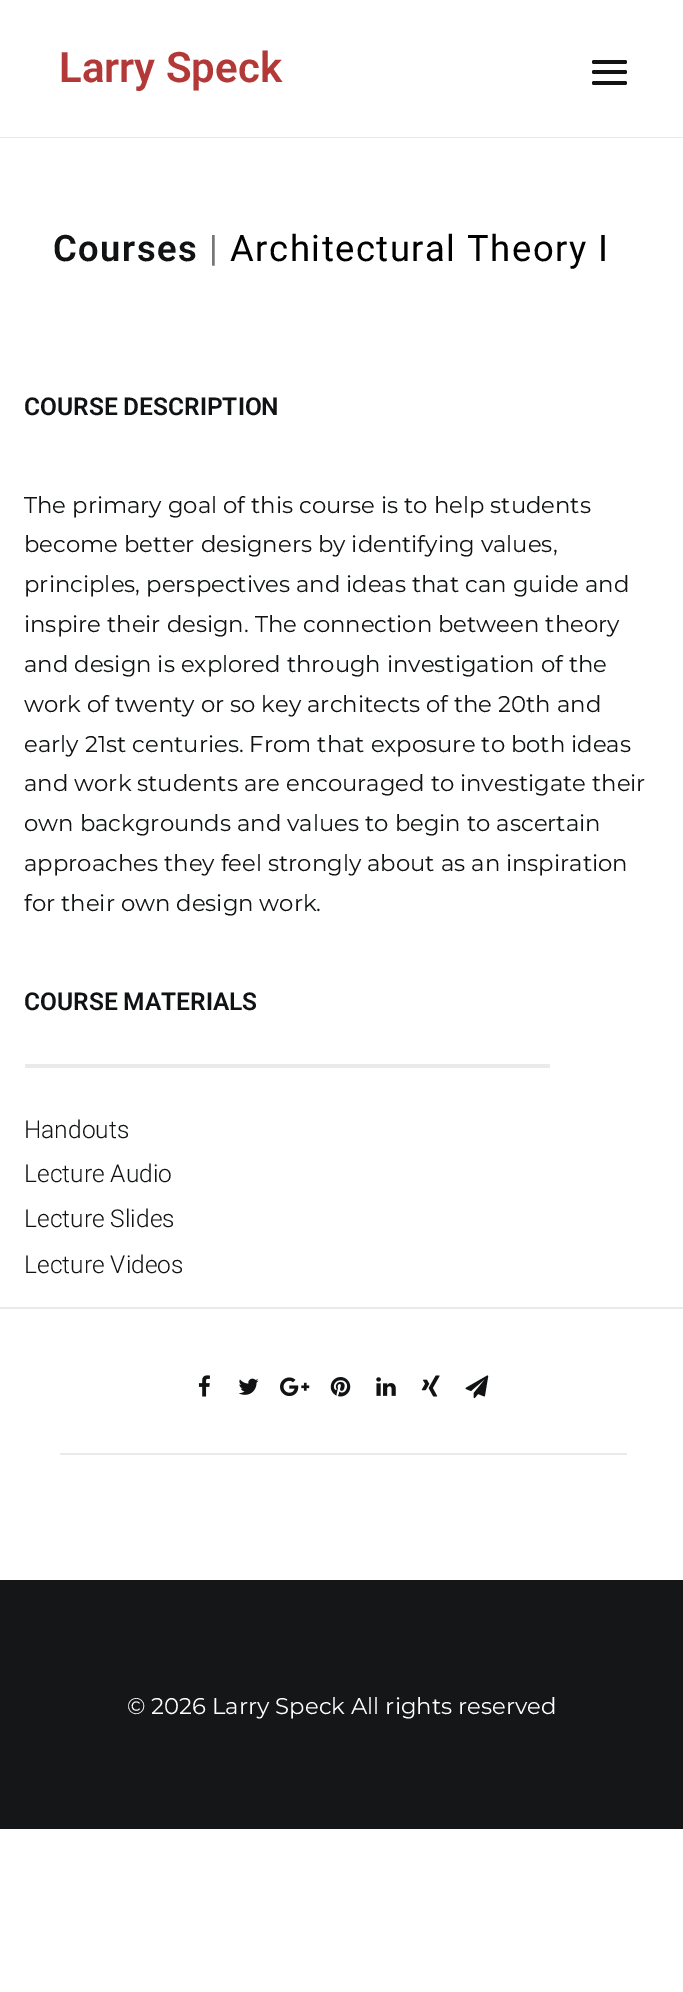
%!PS
<< /PageSize [683 1992] >> setpagedevice
/roundrect { 5 dict begin { /r /h /w /y /x } { exch def } forall
  x r add y moveto x w add y 2 copy h add r arct x w add y h add x 1 index r arct
  x y h add x y r arct x y 2 copy exch w add exch r arct closepath end } def
/picture { 5 dict begin { /h /w /y /x /name } { exch def } forall
  gsave x y translate w h scale
  w h 8 [w 0 0 h 0 0] name (r) file false 3 colorimage grestore end } def
0 1992 translate 1 -1 scale
4 setmiterlimit
1 setgray
0 0 683 1992 rectfill
0.918 setgray
0 137 683 1 rectfill
/Roboto-SemiBold [42 0 0 -42 0 0] selectfont
0.702 0.224 0.224 setrgbcolor
59 82 moveto (Larry Speck) show
0.063 0.071 0.075 setrgbcolor
592 70 35 4 2 roundrect fill
592 60 35 4 2 roundrect fill
592 81 35 4 2 roundrect fill
/Roboto-SemiBold [36.4 0 0 -36.4 0 0] selectfont
53 261 moveto 1.5 0 (Courses) ashow
/Roboto-Regular [36.4 0 0 -36.4 0 0] selectfont
0.467 setgray
209 261 moveto 1.5 0 (|) ashow
0 setgray
230 261 moveto 1.5 0 (Architectural Theory I) ashow
/Roboto-SemiBold [24.5 0 0 -24.5 0 0] selectfont
0.063 0.071 0.075 setrgbcolor
24 415 moveto (COURSE DESCRIPTION) show
/Montserrat-Regular [22.75 0 0 -22.75 0 0] selectfont
24 513 moveto (The primary goal of this course is to help students) show
24 552 moveto (become better designers by identifying values,) show
24 592 moveto (principles, perspectives and ideas that can guide and) show
24 632 moveto (inspire their design. The connection between theory) show
24 672 moveto (and design is explored through investigation of the) show
24 712 moveto (work of twenty or so key architects of the 20th and) show
24 752 moveto (early 21st centuries. From that exposure to both ideas) show
24 791 moveto (and work students are encouraged to investigate their) show
24 831 moveto (own backgrounds and values to begin to ascertain) show
24 871 moveto (approaches they feel strongly about as an inspiration) show
24 911 moveto (for their own design work.) show
/Roboto-SemiBold [24.5 0 0 -24.5 0 0] selectfont
24 1010 moveto (COURSE MATERIALS) show
0.918 setgray
25 1064 525 4 rectfill
/Roboto-Light [24.5 0 0 -24.5 0 0] selectfont
0.063 0.071 0.075 setrgbcolor
24 1138 moveto (Handouts) show
24 1182 moveto (Lecture Audio) show
24 1227 moveto (Lecture Slides) show
24 1273 moveto (Lecture Videos) show
0.918 setgray
0 1307 683 2 rectfill
60 1453 567 2 rectfill
(img1.rgb) 198 1375 12 22 picture
(img2.rgb) 238 1378 21 17 picture
(img3.rgb) 280 1377 30 20 picture
(img4.rgb) 330 1377 21 20 picture
(img5.rgb) 376 1377 20 19 picture
(img6.rgb) 421 1375 19 22 picture
(img7.rgb) 465 1375 24 24 picture
0.078 0.086 0.094 setrgbcolor
0 1580 683 249 rectfill
/Montserrat-Regular [22.75 0 0 -22.75 0 0] selectfont
1 setgray
127 1714 moveto (© 2026 Larry Speck All rights reserved) show
showpage
